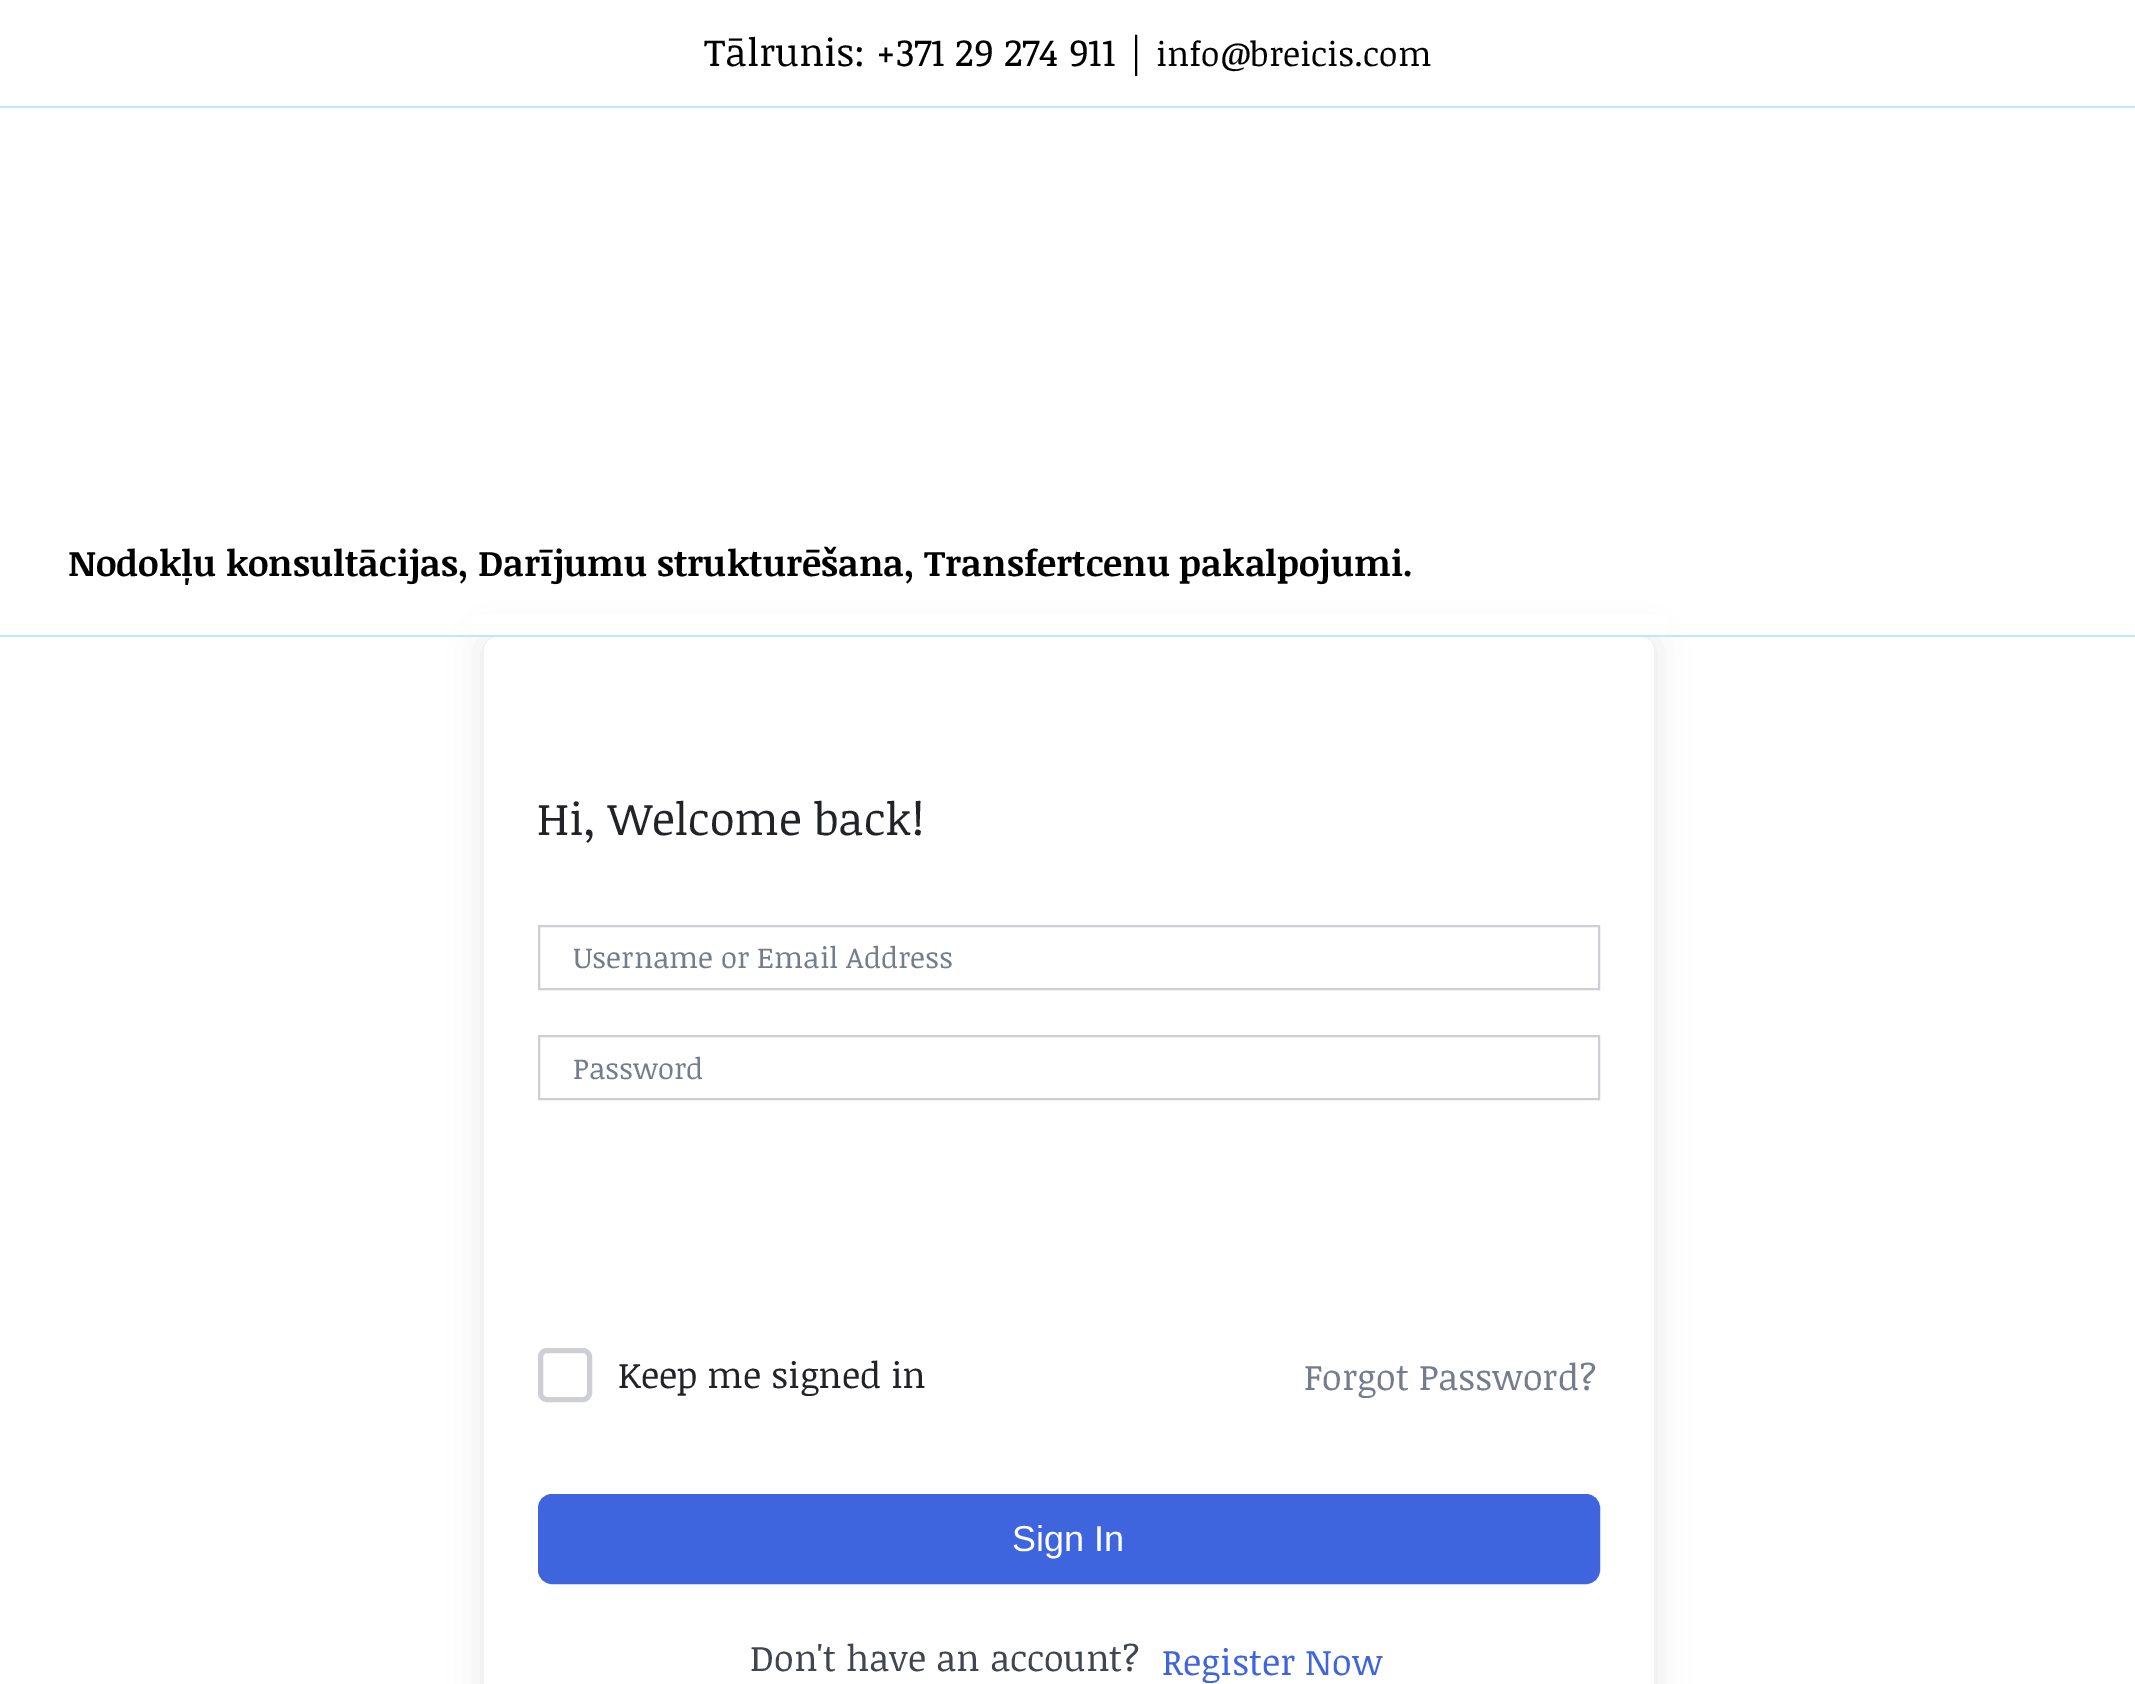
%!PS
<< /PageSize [2135 1684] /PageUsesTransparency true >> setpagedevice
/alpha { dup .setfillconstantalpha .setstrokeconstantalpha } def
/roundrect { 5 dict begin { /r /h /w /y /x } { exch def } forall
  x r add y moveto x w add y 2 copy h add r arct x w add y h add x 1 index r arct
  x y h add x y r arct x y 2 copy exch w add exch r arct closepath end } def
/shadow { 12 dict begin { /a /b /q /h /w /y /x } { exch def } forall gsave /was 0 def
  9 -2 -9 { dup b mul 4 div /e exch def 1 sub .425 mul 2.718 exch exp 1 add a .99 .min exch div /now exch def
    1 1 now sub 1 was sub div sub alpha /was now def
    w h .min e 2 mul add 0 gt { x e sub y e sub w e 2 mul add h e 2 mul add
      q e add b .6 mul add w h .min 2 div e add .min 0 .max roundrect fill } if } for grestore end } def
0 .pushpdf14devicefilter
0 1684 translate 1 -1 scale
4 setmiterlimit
1 setgray
0 0 2135 1684 rectfill
0.733 0.91 0.988 setrgbcolor
0 106 2135 2 rectfill
/NoticiaText-Regular [38.25 0 0 -38.25 0 0] selectfont
0 setgray
704 66 moveto (Tālrunis: +371 29 274 911) show
1130 66 moveto (|) show
/NoticiaText-Regular [33.75 0 0 -33.75 0 0] selectfont
1156 66 moveto (info@breicis.com) show
gsave
newpath 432 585 moveto 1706 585 lineto 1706 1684 lineto 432 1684 lineto closepath 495 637 moveto 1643 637 lineto 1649 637 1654 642 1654 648 curveto 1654 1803 lineto 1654 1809 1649 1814 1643 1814 curveto 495 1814 lineto 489 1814 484 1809 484 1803 curveto 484 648 lineto 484 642 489 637 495 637 curveto closepath eoclip newpath
484 637 1170 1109 11 17 0.1 shadow
grestore
1 setgray
472 615 1194 20 rectfill
0.733 0.91 0.988 setrgbcolor
0 635 2135 2 rectfill
/NoticiaText-Bold [36 0 0 -36 0 0] selectfont
0 setgray
68 576 moveto (Nodokļu konsultācijas, Darījumu strukturēšana, Transfertcenu pakalpojumi.) show
/NoticiaText-Regular [45 0 0 -45 0 0] selectfont
0.129 0.137 0.153 setrgbcolor
537 835 moveto (Hi, Welcome back!) show
0.804 0.812 0.835 setrgbcolor
2 setlinewidth
539 926 1060 63 rectstroke
gsave
574 936 990 41 rectclip
/NoticiaText-Regular [29.25 0 0 -29.25 0 0] selectfont
0.459 0.486 0.557 setrgbcolor
573 968 moveto (Username or Email Address) show
grestore
539 1036 1060 63 rectstroke
gsave
574 1046 990 41 rectclip
/NoticiaText-Regular [29.25 0 0 -29.25 0 0] selectfont
0.459 0.486 0.557 setrgbcolor
573 1079 moveto (Password) show
grestore
5 setlinewidth
540.5 1350.5 49 49 6.5 roundrect stroke
/NoticiaText-Regular [36 0 0 -36 0 0] selectfont
0.129 0.137 0.153 setrgbcolor
618 1388 moveto (Keep me signed in) show
0.459 0.486 0.557 setrgbcolor
1304 1390 moveto (Forgot Password?) show
0.243 0.392 0.871 setrgbcolor
539 1495 1060 88 13 roundrect gsave fill grestore
2 setlinewidth
stroke
/LiberationSans-Regular [36 0 0 -36 0 0] selectfont
1 setgray
1012 1551 moveto (Sign In) show
/NoticiaText-Regular [36 0 0 -36 0 0] selectfont
0.255 0.271 0.31 setrgbcolor
750 1671 moveto (Don't have an account?) show
0.243 0.392 0.871 setrgbcolor
1162 1675 moveto (Register Now) show
.poppdf14devicefilter showpage
